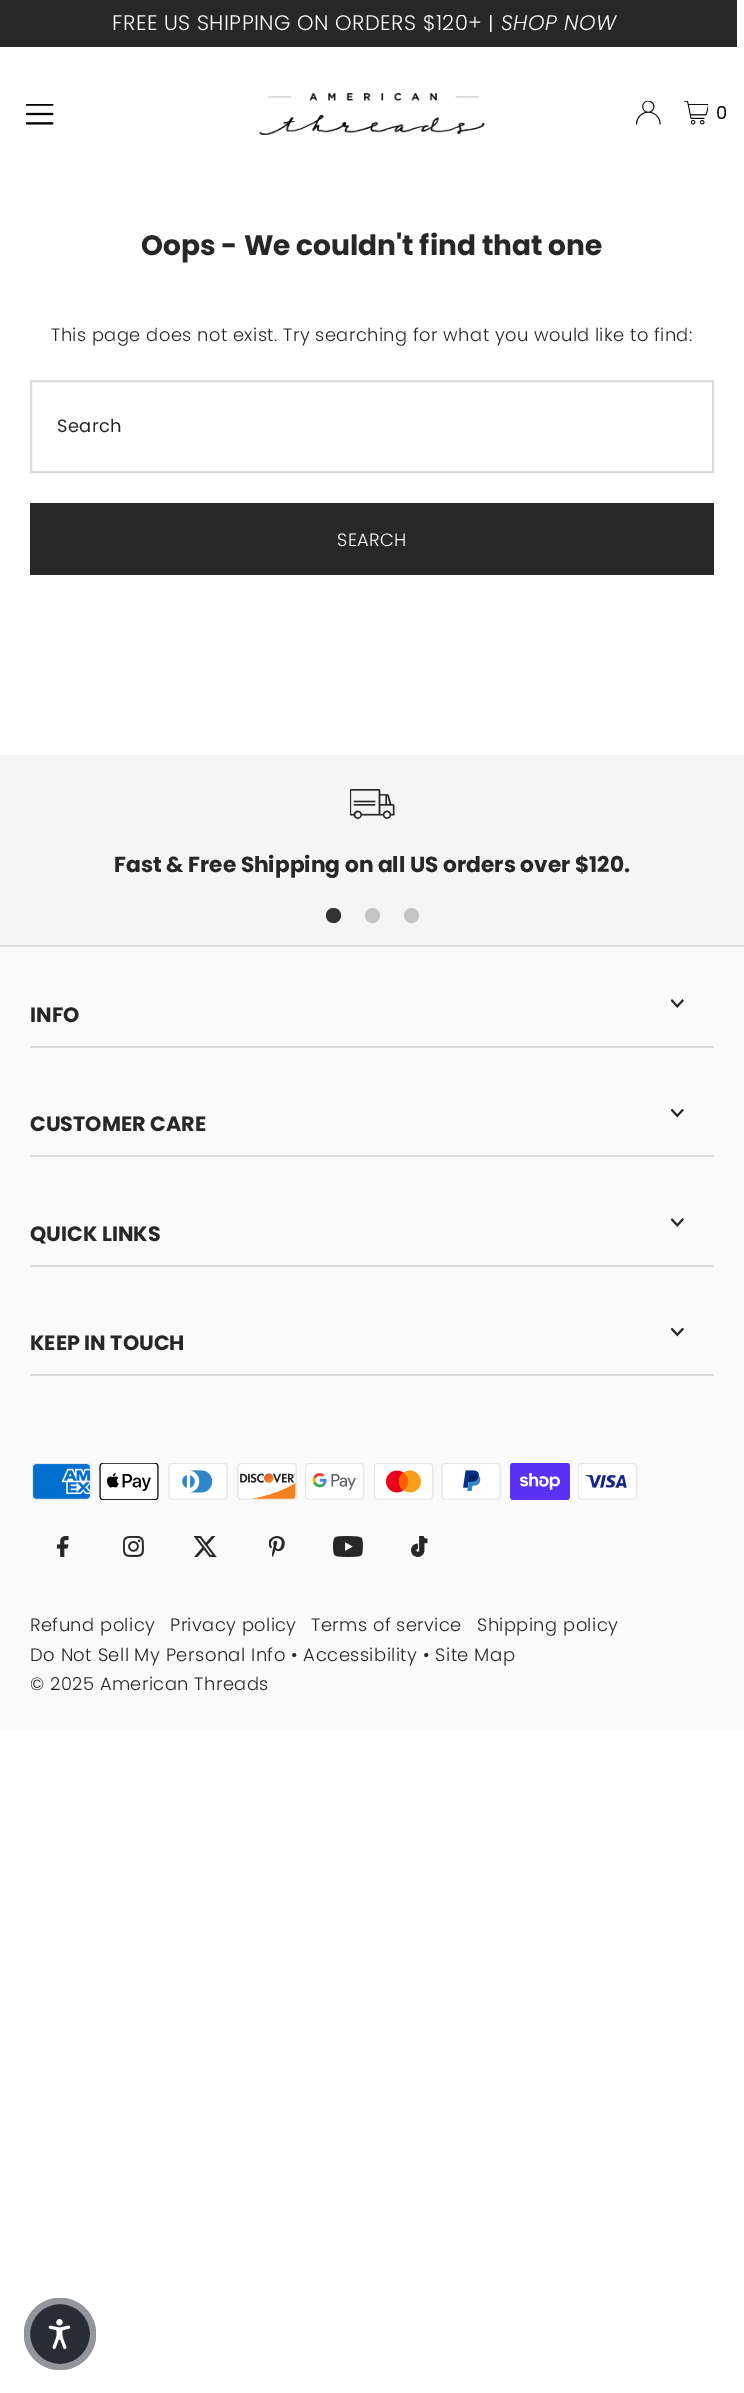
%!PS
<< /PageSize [744 2393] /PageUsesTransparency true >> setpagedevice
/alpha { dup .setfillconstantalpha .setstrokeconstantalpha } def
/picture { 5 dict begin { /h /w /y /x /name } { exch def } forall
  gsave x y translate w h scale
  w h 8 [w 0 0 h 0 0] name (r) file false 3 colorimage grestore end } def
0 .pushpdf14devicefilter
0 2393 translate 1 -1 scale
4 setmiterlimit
1 setgray
0 0 744 2393 rectfill
0.157 0.153 0.157 setrgbcolor
0 0 737 47 rectfill
gsave
23 15 684 17 rectclip
/Poppins-Light [21 0 0 -21 0 0] selectfont
1 setgray
112 30 moveto 0.45 0 (FREE US SHIPPING ON ORDERS $120+ |) ashow
grestore
/Poppins-LightItalic [21 0 0 -21 0 0] selectfont
1 setgray
501 30 moveto 0.45 0 (SHOP NOW) ashow
(img1.rgb) 26 104 28 21 picture
(img2.rgb) 259 93 226 42 picture
(img3.rgb) 636 101 25 24 picture
(img4.rgb) 684 101 24 24 picture
/Poppins-Regular [17.85 0 0 -17.85 0 0] selectfont
0 setgray
716 119 moveto 0.45 0 (0) ashow
/Poppins-Bold [28 0 0 -28 0 0] selectfont
0.157 0.153 0.157 setrgbcolor
141 255 moveto (Oops - We couldn't find that one) show
/Poppins-Light [17.85 0 0 -17.85 0 0] selectfont
51 341 moveto 0.45 0 (This page does not exist. Try searching for what you would like to find:) ashow
0.863 setgray
2 setlinewidth
31 381 682 91 rectstroke
/Poppins-Regular [17.85 0 0 -17.85 0 0] selectfont
0.157 0.153 0.157 setrgbcolor
57 432 moveto 0.45 0 (Search) ashow
30 503 684 72 rectfill
/Poppins-Light [17.85 0 0 -17.85 0 0] selectfont
1 setgray
337 546 moveto 0.45 0 (SEARCH) ashow
0.961 setgray
0 755 744 190 rectfill
(img5.rgb) 350 789 45 30 picture
/Poppins-Bold [21.7 0 0 -21.7 0 0] selectfont
0.157 0.153 0.157 setrgbcolor
114 872 moveto (Fast & Free Shipping on all US orders over $120.) show
0.2 setgray
newpath 333.5 915.5 7.5 0 360 arc closepath fill
0.773 setgray
newpath 372.5 915.5 7.5 0 360 arc closepath fill
newpath 411.5 915.5 7.5 0 360 arc closepath fill
0.976 0.98 0.976 setrgbcolor
0 947 744 783 rectfill
0.863 setgray
0 945 744 2 rectfill
30 1046 684 2 rectfill
(img6.rgb) 671 999 13 9 picture
/Poppins-Bold [20.75 0 0 -20.75 0 0] selectfont
0.157 0.153 0.157 setrgbcolor
30 1022 moveto (INFO) show
0.863 setgray
30 1155 684 2 rectfill
(img7.rgb) 671 1109 13 9 picture
0.157 0.153 0.157 setrgbcolor
30 1131 moveto (CUSTOMER CARE) show
0.863 setgray
30 1265 684 2 rectfill
(img6.rgb) 671 1218 13 9 picture
0.157 0.153 0.157 setrgbcolor
30 1241 moveto (QUICK LINKS) show
0.863 setgray
30 1374 684 2 rectfill
(img7.rgb) 671 1328 13 9 picture
0.157 0.153 0.157 setrgbcolor
30 1350 moveto (KEEP IN TOUCH) show
(img8.rgb) 32 1463 60 37 picture
(img9.rgb) 99 1463 60 37 picture
(img10.rgb) 168 1463 60 37 picture
(img11.rgb) 237 1463 60 37 picture
(img12.rgb) 305 1463 60 37 picture
(img13.rgb) 374 1463 60 37 picture
(img14.rgb) 441 1463 60 37 picture
(img15.rgb) 510 1463 60 37 picture
(img16.rgb) 578 1463 60 37 picture
(img17.rgb) 57 1536 12 21 picture
(img18.rgb) 123 1536 21 21 picture
(img19.rgb) 194 1536 23 21 picture
(img20.rgb) 269 1536 16 21 picture
(img21.rgb) 333 1536 30 21 picture
(img22.rgb) 411 1536 17 21 picture
/Poppins-Light [17.85 0 0 -17.85 0 0] selectfont
30 1631 moveto 0.45 0 (Refund policy) ashow
170 1631 moveto 0.45 0 (Privacy policy) ashow
311 1631 moveto 0.45 0 (Terms of service) ashow
477 1631 moveto 0.45 0 (Shipping policy) ashow
/Poppins-Light [18 0 0 -18 0 0] selectfont
30 1661 moveto 0.45 0 (Do Not Sell My Personal Info • Accessibility • Site Map) ashow
/Poppins-Light [17.85 0 0 -17.85 0 0] selectfont
30 1690 moveto 0.45 0 (© 2025 American Threads) ashow
0.153 0.176 0.212 setrgbcolor
newpath 60 2334 36 0 360 arc closepath fill
0.5 alpha
1 setgray
6 setlinewidth
newpath 60 2334 33 0 360 arc closepath stroke
1 alpha
(img23.rgb) 48 2319 23 30 picture
.poppdf14devicefilter showpage
